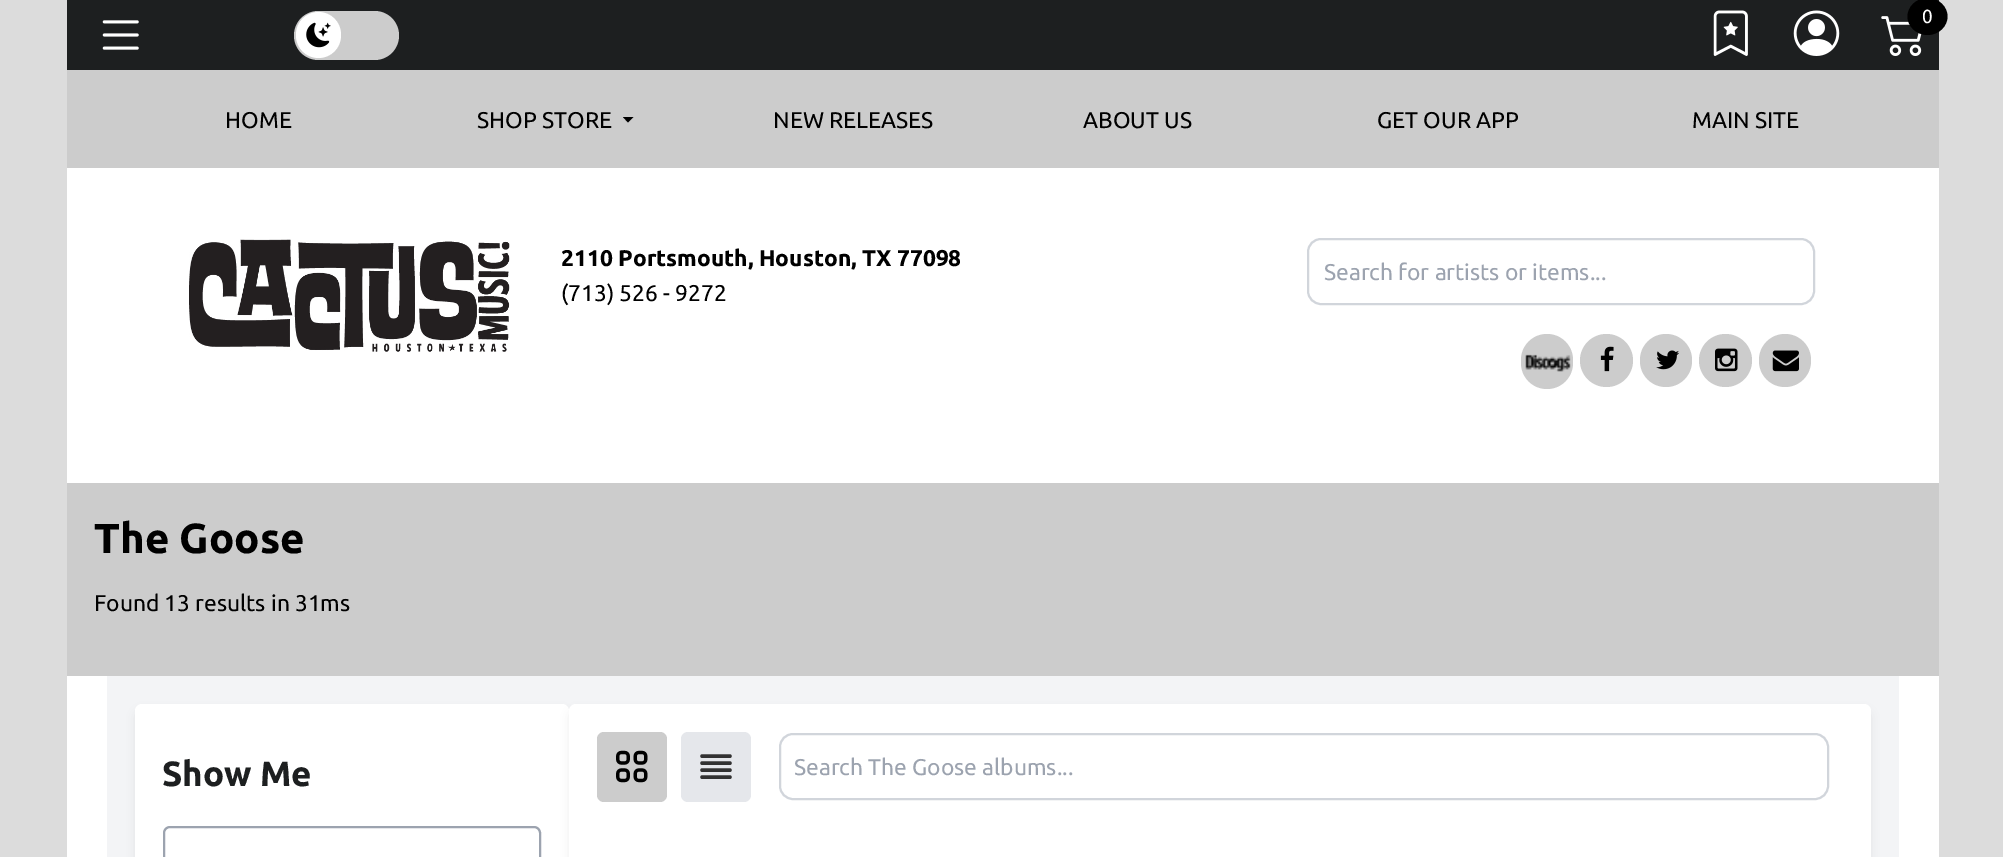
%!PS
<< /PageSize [2003 857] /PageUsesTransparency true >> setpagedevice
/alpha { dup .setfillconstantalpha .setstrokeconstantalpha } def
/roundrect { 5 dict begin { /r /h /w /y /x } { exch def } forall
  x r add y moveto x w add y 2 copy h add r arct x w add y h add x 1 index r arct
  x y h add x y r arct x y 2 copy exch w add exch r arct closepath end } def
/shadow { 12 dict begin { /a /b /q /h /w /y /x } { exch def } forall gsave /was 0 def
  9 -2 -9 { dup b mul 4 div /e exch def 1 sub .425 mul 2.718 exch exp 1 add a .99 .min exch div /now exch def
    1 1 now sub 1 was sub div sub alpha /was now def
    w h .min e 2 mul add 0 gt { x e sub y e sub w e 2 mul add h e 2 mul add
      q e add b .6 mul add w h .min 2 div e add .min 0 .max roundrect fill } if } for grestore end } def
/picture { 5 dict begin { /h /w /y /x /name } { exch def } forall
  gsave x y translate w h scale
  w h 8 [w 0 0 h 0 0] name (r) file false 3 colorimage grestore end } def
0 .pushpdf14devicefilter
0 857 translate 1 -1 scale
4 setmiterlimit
0.863 setgray
0 0 2003 857 rectfill
1 setgray
67 168 1872 689 rectfill
0.114 0.122 0.125 setrgbcolor
67 0 1872 70 rectfill
(img1.rgb) 102 20 37 30 picture
0.8 setgray
294 11 105 49 24.5 roundrect fill
1 setgray
296 12 45 46 22.5 roundrect fill
(img2.rgb) 306 22 25 26 picture
(img3.rgb) 1713 10 35 46 picture
(img4.rgb) 1793 10 47 46 picture
(img5.rgb) 1881 16 41 40 picture
0 setgray
newpath 1927.5 -2 moveto 1938.5 -2 1947.5 6.5 1947.5 16.5 curveto 1947.5 26.5 1938.5 35 1927.5 35 curveto 1916.5 35 1907.5 26.5 1907.5 16.5 curveto 1907.5 6.5 1916.5 -2 1927.5 -2 curveto closepath fill
/Ubuntu-Regular [19 0 0 -19 0 0] selectfont
1 setgray
1922 23 moveto (0) show
0.8 setgray
67 70 1872 98 rectfill
/Ubuntu-Regular [22.75 0 0 -22.75 0 0] selectfont
0 setgray
225 128 moveto (HOME) show
477 128 moveto (SHOP STORE) show
newpath 623 117 moveto 633.5 117 lineto 628 122.5 lineto closepath fill
773 128 moveto (NEW RELEASES) show
1083 128 moveto (ABOUT US) show
1377 128 moveto (GET OUR APP) show
1692 128 moveto (MAIN SITE) show
(img6.rgb) 189 239 321 113 picture
/Ubuntu-Bold [22.75 0 0 -22.75 0 0] selectfont
561 266 moveto (2110 Portsmouth, Houston, TX 77098) show
/Ubuntu-Regular [22.75 0 0 -22.75 0 0] selectfont
561 301 moveto (\(713\) 526 - 9272) show
0.82 0.835 0.859 setrgbcolor
2 setlinewidth
1308 239 506 65 13 roundrect stroke
0.612 0.639 0.686 setrgbcolor
1324 280 moveto (Search for artists or items...) show
0.8 setgray
1521 334 52 55 26 roundrect fill
(img7.rgb) 1525 354 46 18 picture
newpath 1606.5 360.5 26.5 0 360 arc closepath fill
(img8.rgb) 1600 346 14 26 picture
1640 334 52 53 26 roundrect fill
(img9.rgb) 1656 350 24 20 picture
newpath 1725.5 360.5 26.5 0 360 arc closepath fill
(img10.rgb) 1715 348 23 24 picture
1759 334 52 53 26 roundrect fill
(img11.rgb) 1772 350 27 22 picture
67 483 1872 193 rectfill
/Ubuntu-Bold [42 0 0 -42 0 0] selectfont
0 setgray
94 553 moveto (The Goose) show
/Ubuntu-Regular [22.75 0 0 -22.75 0 0] selectfont
94 611 moveto (Found 13 results in 31ms) show
0.953 0.957 0.965 setrgbcolor
107 676 1792 181 rectfill
0 setgray
137 712 430 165 5 5 0.1 shadow
1 setgray
135 704 434 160 7 roundrect fill
/Ubuntu-Bold [35 0 0 -35 0 0] selectfont
0.114 0.122 0.125 setrgbcolor
162 786 moveto (Show Me) show
0.612 0.639 0.686 setrgbcolor
164 827 376 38 6 roundrect stroke
0 setgray
571 712 1298 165 5 5 0.1 shadow
1 setgray
569 704 1302 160 7 roundrect fill
0.8 setgray
597 732 70 70 7 roundrect fill
(img12.rgb) 616 750 32 33 picture
0.898 0.906 0.922 setrgbcolor
681 732 70 70 7 roundrect fill
0.196 setgray
3.5 setlinewidth
1 setlinecap
1 setlinejoin
newpath 702 756 moveto 730 756 lineto 702 763 moveto 730 763 lineto 702 770 moveto 730 770 lineto 702 777 moveto 730 777 lineto stroke
0.82 0.835 0.859 setrgbcolor
2 setlinewidth
0 setlinecap
0 setlinejoin
780 734 1048 65 13 roundrect stroke
gsave
795 754 995 25 rectclip
/Ubuntu-Regular [22.75 0 0 -22.75 0 0] selectfont
0.612 0.639 0.686 setrgbcolor
794 775 moveto (Search The Goose albums...) show
grestore
.poppdf14devicefilter showpage
